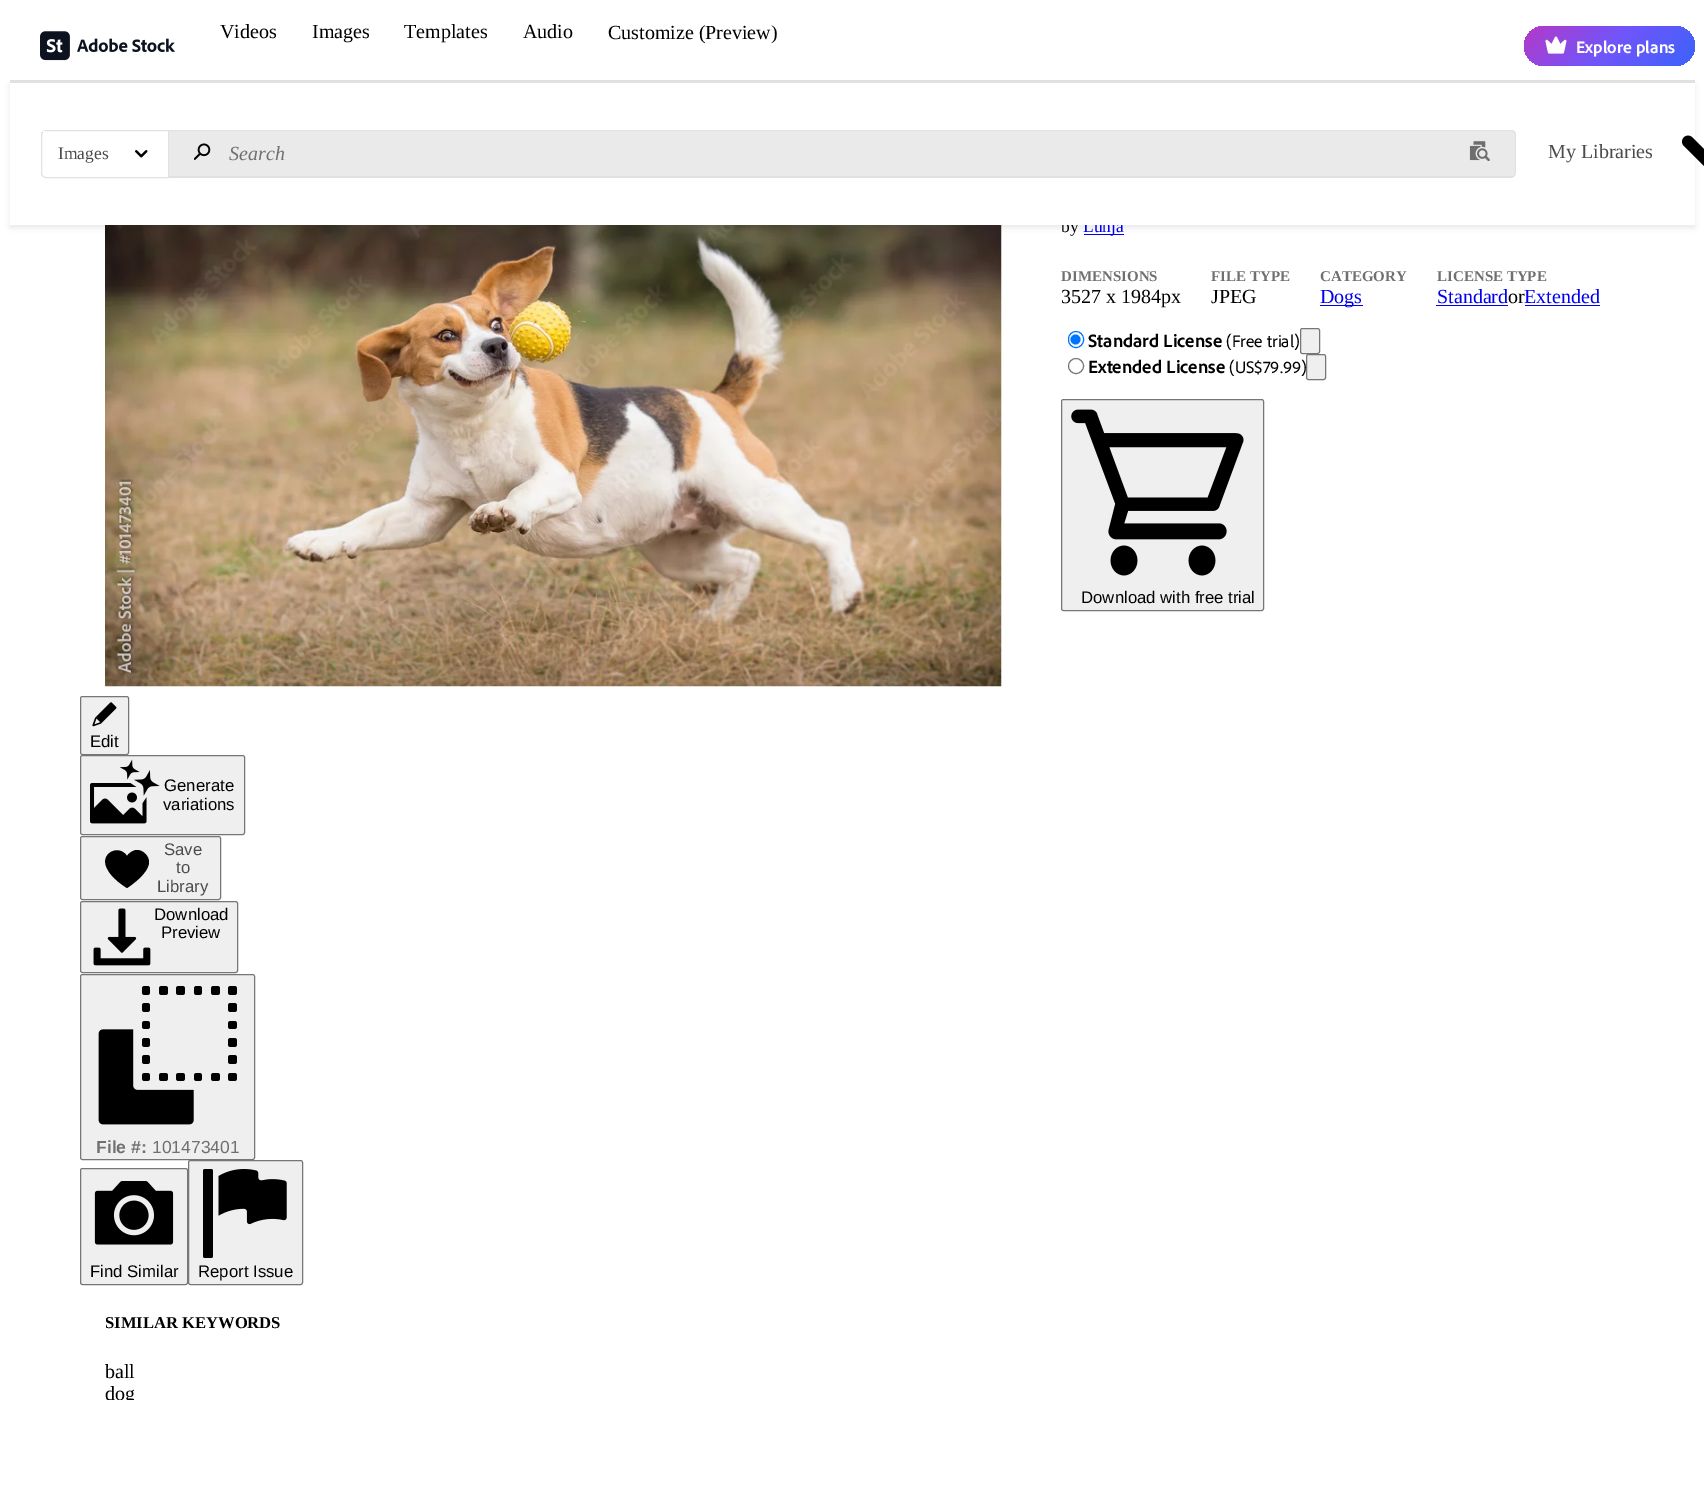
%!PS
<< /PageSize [1704 1489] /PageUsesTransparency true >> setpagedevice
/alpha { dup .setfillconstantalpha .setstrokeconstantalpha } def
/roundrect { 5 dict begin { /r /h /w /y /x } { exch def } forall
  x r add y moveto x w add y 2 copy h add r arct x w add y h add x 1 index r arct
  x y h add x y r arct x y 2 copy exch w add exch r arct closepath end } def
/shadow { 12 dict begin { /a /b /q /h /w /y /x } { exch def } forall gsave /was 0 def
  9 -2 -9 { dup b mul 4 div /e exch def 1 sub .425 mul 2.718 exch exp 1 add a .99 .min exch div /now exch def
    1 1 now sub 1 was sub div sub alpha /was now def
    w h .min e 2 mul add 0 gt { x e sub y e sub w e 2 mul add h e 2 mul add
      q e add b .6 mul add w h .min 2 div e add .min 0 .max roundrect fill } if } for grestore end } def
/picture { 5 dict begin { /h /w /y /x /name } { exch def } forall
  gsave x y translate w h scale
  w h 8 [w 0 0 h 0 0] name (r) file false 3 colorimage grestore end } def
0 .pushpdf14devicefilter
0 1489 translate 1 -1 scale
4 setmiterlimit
1 setgray
0 0 1704 1489 rectfill
0 0 0.933 setrgbcolor
1084 234 40 1 rectfill
(img8.rgb) 105 225 897 462 picture
0.204 setgray
10 85 1685 143 0 2.5 0.1 shadow
0.882 setgray
10 80 1685 3 rectfill
(img1.rgb) 40 31 135 30 picture
/LiberationSerif-Regular [20 0 0 -20 0 0] selectfont
0 setgray
220 38 moveto (Videos) show
312 38 moveto (Images) show
404 38 moveto (Templates) show
523 38 moveto (Audio) show
608 39 moveto (Customize \(Preview\)) show
gsave 1524 26 171 40 20 roundrect clip newpath
<< /ShadingType 2 /ColorSpace /DeviceRGB /Coords [1557 -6.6 1662 99] /Extend [true true] /Function << /FunctionType 3 /Domain [0 1] /Functions [<< /FunctionType 2 /Domain [0 1] /C0 [0.71 0.224 0.784] /C1 [0.443 0.333 0.98] /N 1 >> << /FunctionType 2 /Domain [0 1] /C0 [0.443 0.333 0.98] /C1 [0.231 0.388 0.984] /N 1 >>] /Bounds [0.5] /Encode [0 1 0 1] >> >> shfill grestore
(img2.rgb) 1545 36 22 18 picture
/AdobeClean-Bold [17.5 0 0 -17.5 0 0] selectfont
1 setgray
1576 53 moveto (Explore plans) show
/LiberationSerif-Regular [17.5 0 0 -17.5 0 0] selectfont
0 setgray
1061 232 moveto (by) show
0 0 0.933 setrgbcolor
1083 232 moveto (Lunja) show
1 setgray
10 83 1685 142 rectfill
0.882 setgray
newpath 46 130.5 moveto 168.5 130.5 lineto 168.5 177.5 lineto 46 177.5 lineto 43.5 177.5 41.5 175.5 41.5 173 curveto 41.5 135 lineto 41.5 132.5 43.5 130.5 46 130.5 curveto closepath stroke
1 setgray
43 131 2 1 rectfill
0.294 setgray
58 159 moveto (Images) show
(img3.rgb) 135 150 13 8 picture
0.918 setgray
newpath 169 131 moveto 1511 131 lineto 1513 131 1515 133 1515 135 curveto 1515 172 lineto 1515 174 1513 176 1511 176 curveto 169 176 lineto closepath fill
0.882 setgray
newpath 169 130 moveto 1511 130 lineto 1514 130 1516 132 1516 135 curveto 1516 172 lineto 1516 175 1514 178 1511 178 curveto 169 178 lineto closepath 169 131 moveto 1511 131 lineto 1513 131 1515 133 1515 135 curveto 1515 172 lineto 1515 175 1513 176 1511 176 curveto 169 176 lineto closepath eofill
(img4.rgb) 194 143 17 17 picture
/LiberationSerif-Italic [20 0 0 -20 0 0] selectfont
0.439 setgray
229 160 moveto (Search) show
(img5.rgb) 1469 141 21 20 picture
/LiberationSerif-Regular [20 0 0 -20 0 0] selectfont
0.294 setgray
1548 158 moveto (My Libraries) show
(img6.rgb) 1681 135 23 31 picture
/LiberationSerif-Bold [15 0 0 -15 0 0] selectfont
0.439 setgray
1061 281 moveto (DIMENSIONS) show
/LiberationSerif-Regular [20 0 0 -20 0 0] selectfont
0 setgray
1061 303 moveto (3527 x 1984px) show
/LiberationSerif-Bold [15 0 0 -15 0 0] selectfont
0.439 setgray
1211 281 moveto (FILE TYPE) show
/LiberationSerif-Regular [20 0 0 -20 0 0] selectfont
0 setgray
1211 303 moveto (JPEG) show
/LiberationSerif-Bold [15 0 0 -15 0 0] selectfont
0.439 setgray
1320 281 moveto (CATEGORY) show
0 0 0.933 setrgbcolor
1320 305 43 1 rectfill
/LiberationSerif-Regular [20 0 0 -20 0 0] selectfont
1320 303 moveto (Dogs) show
/LiberationSerif-Bold [15 0 0 -15 0 0] selectfont
0.439 setgray
1437 281 moveto (LICENSE TYPE) show
/LiberationSerif-Regular [20 0 0 -20 0 0] selectfont
0 0 0.933 setrgbcolor
1437 303 moveto (Standard) show
0 setgray
1508 303 moveto (or) show
0 0 0.933 setrgbcolor
1436 305 72 1 rectfill
1525 305 75 1 rectfill
1524 303 moveto (Extended) show
0 0.459 1 setrgbcolor
1068.5 331.5 15 16 7.5 roundrect stroke
newpath 1075.5 339.5 5 0 360 arc closepath fill
/AdobeClean-Bold [18.75 0 0 -18.75 0 0] selectfont
0 setgray
1088 347 moveto (Standard License) show
/AdobeClean-Regular [17.5 0 0 -17.5 0 0] selectfont
1226 347 moveto (\(Free trial\)) show
0.937 setgray
1300.5 328.5 19 25 2 roundrect gsave fill grestore
0.463 setgray
stroke
newpath 1076 366 7.5 0 360 arc closepath stroke
/AdobeClean-Bold [18.75 0 0 -18.75 0 0] selectfont
0 setgray
1088 373 moveto (Extended License) show
/AdobeClean-Regular [17.5 0 0 -17.5 0 0] selectfont
1229 373 moveto (\(US$79.99\)) show
0.937 setgray
1306.5 354.5 19 25 2 roundrect gsave fill grestore
0.463 setgray
stroke
0.937 setgray
1061.5 399.5 202 211 2 roundrect gsave fill grestore
0.463 setgray
stroke
(img7.rgb) 1071 409 173 167 picture
/LiberationSans-Regular [16.75 0 0 -16.75 0 0] selectfont
0 setgray
1081 603 moveto (Download with free trial) show
0.937 setgray
80.5 696.5 48 58 2 roundrect gsave fill grestore
0.463 setgray
stroke
(img9.rgb) 92 702 25 25 picture
0 setgray
90 747 moveto (Edit) show
0.937 setgray
80.5 755.5 164 79 2 roundrect gsave fill grestore
0.463 setgray
stroke
(img10.rgb) 90 759 70 65 picture
0 setgray
164 791 moveto (Generate) show
163 810 moveto (variations) show
0.937 setgray
80.5 836.5 140 63 2 roundrect gsave fill grestore
0.463 setgray
stroke
0 setgray
newpath 137 850 moveto 133 850 129 853 127 856 curveto 119 844 101 853 106 866 curveto 109 875 119 883 127 888 curveto 127 888 149 874 149 862 curveto 149 856 143 850 137 850 curveto closepath eofill
0.294 setgray
164 855 moveto (Save) show
176 873 moveto (to) show
157 892 moveto (Library) show
0.937 setgray
80.5 901.5 157 71 2 roundrect gsave fill grestore
0.463 setgray
stroke
(img11.rgb) 93 908 58 58 picture
0 setgray
154 920 moveto (Download) show
161 938 moveto (Preview) show
0.937 setgray
80.5 974.5 174 185 2 roundrect gsave fill grestore
0.463 setgray
stroke
(img12.rgb) 98 986 139 139 picture
/LiberationSans-Bold [17.5 0 0 -17.5 0 0] selectfont
0.439 setgray
96 1153 moveto (File #:) show
/LiberationSans-Regular [17.5 0 0 -17.5 0 0] selectfont
152 1153 moveto (101473401) show
0.937 setgray
80.5 1168.5 107 116 2 roundrect gsave fill grestore
0.463 setgray
stroke
(img13.rgb) 94 1181 80 64 picture
/LiberationSans-Regular [16.75 0 0 -16.75 0 0] selectfont
0 setgray
90 1277 moveto (Find Similar) show
0.937 setgray
188.5 1160.5 114 124 2 roundrect gsave fill grestore
0.463 setgray
stroke
(img14.rgb) 203 1169 84 89 picture
0 setgray
198 1277 moveto (Report Issue) show
/LiberationSerif-Bold [16.6 0 0 -16.6 0 0] selectfont
105 1328 moveto (SIMILAR KEYWORDS) show
/LiberationSerif-Regular [20 0 0 -20 0 0] selectfont
105 1378 moveto (ball) show
gsave
105 1360 1495 40 rectclip
105 1400 moveto (dog) show
grestore
.poppdf14devicefilter showpage
